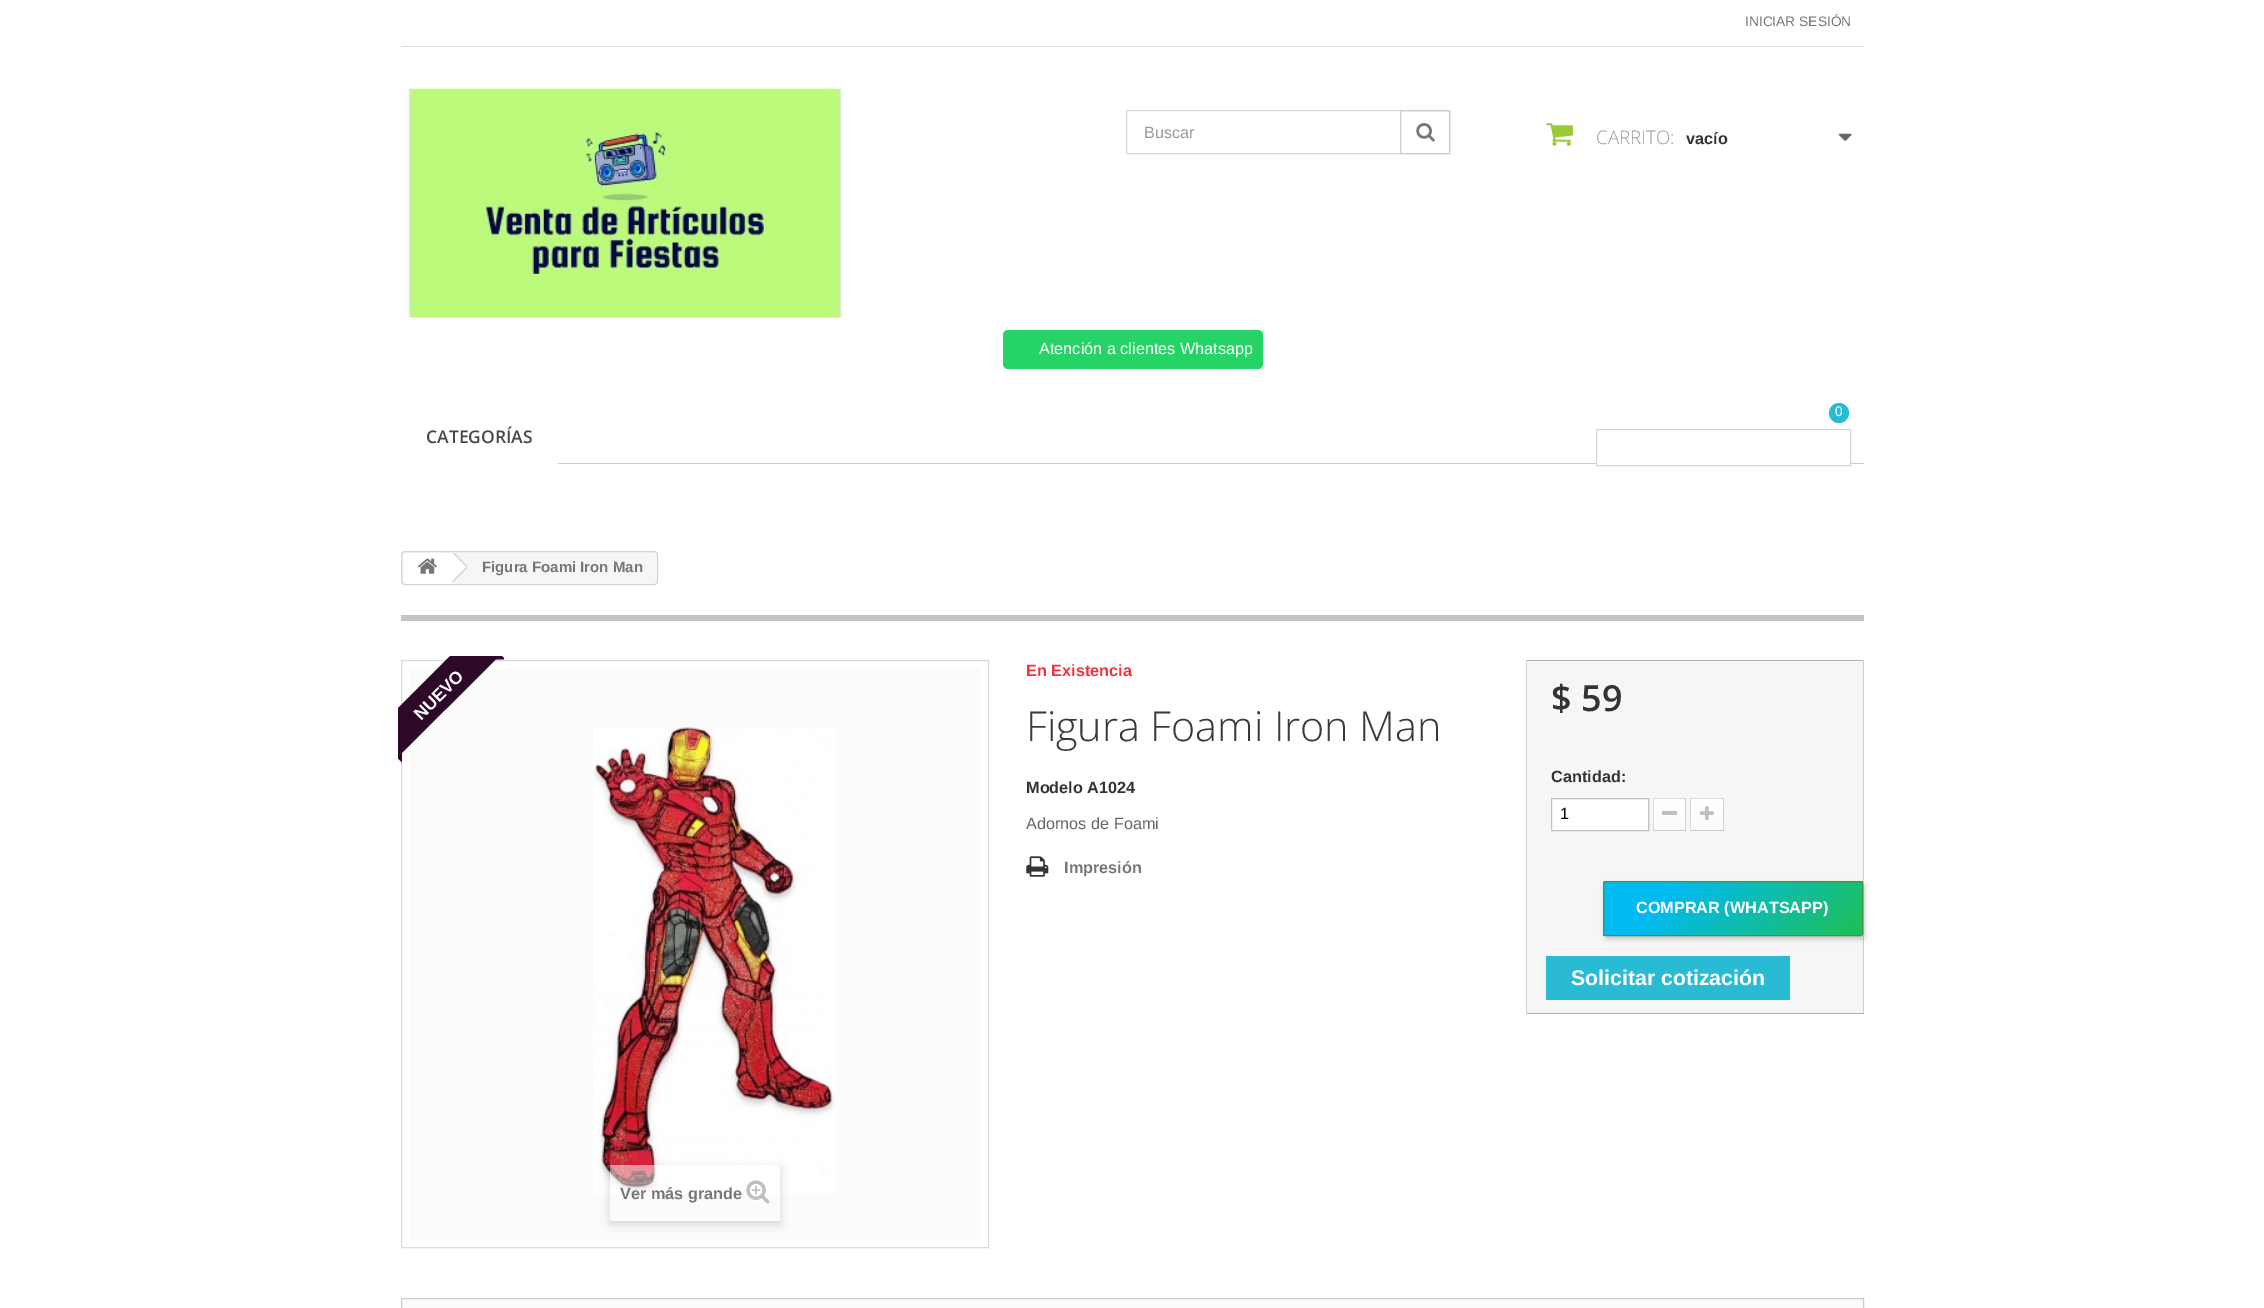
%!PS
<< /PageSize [2264 1308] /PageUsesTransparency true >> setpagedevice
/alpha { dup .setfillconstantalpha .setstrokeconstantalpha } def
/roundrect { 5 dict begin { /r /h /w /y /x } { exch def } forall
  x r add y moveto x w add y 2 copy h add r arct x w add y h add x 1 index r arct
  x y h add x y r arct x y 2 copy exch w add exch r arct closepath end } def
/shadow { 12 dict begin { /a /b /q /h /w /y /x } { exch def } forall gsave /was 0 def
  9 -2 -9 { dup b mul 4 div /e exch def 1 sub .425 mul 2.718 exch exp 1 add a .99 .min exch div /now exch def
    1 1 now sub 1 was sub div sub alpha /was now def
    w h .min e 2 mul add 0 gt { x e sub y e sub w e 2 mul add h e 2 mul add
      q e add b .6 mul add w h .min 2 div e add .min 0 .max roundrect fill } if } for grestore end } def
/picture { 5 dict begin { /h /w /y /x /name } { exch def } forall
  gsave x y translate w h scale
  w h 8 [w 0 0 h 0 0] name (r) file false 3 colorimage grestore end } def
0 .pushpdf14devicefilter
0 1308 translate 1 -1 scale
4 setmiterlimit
1 setgray
0 0 2264 1308 rectfill
0.867 setgray
401 46 1463 1 rectfill
/LiberationSans-Regular [13.75 0 0 -13.75 0 0] selectfont
0.467 0.463 0.463 setrgbcolor
1745 26 moveto (INICIAR SESIÓN) show
(img1.rgb) 404 88 439 230 picture
0.839 0.831 0.831 setrgbcolor
1126.5 110.5 323 43 rectstroke
/LiberationSans-Regular [16.25 0 0 -16.25 0 0] selectfont
0.6 setgray
1144 138 moveto (Buscar) show
0.8 setgray
1400.5 110.5 49 43 rectstroke
(img2.rgb) 1416 123 19 19 picture
(img3.rgb) 1546 123 27 23 picture
/OpenSans-Light [18.75 0 0 -18.75 0 0] selectfont
0.6 setgray
1596 144 moveto (CARRITO:) show
/LiberationSans-Bold [16.25 0 0 -16.25 0 0] selectfont
0.2 setgray
1686 144 moveto (vacío) show
(img4.rgb) 1838 133 14 8 picture
0.145 0.827 0.4 setrgbcolor
1003 330 260 39 5 roundrect fill
/LiberationSans-Regular [16.25 0 0 -16.25 0 0] selectfont
1 setgray
1039 354 moveto (Atención a clientes Whatsapp) show
0.161 0.733 0.831 setrgbcolor
newpath 1839 413 10 0 360 arc closepath fill
/LiberationSans-Regular [13.75 0 0 -13.75 0 0] selectfont
1 setgray
1835 416 moveto (0) show
0.8 setgray
558 463 1306 1 rectfill
/OpenSans-SemiBold [17.5 0 0 -17.5 0 0] selectfont
0.282 setgray
426 443 moveto (CATEGORÍAS) show
1 setgray
1597 463 253 1 rectfill
0.839 0.831 0.831 setrgbcolor
1596.5 429.5 254 36 rectstroke
0.965 setgray
401.5 551.5 256 33 3.5 roundrect gsave fill grestore
0.839 0.831 0.831 setrgbcolor
stroke
1 setgray
newpath 408 553 moveto 451 553 lineto 451 584 lineto 408 584 lineto 406 584 404 582 404 580 curveto 404 557 lineto 404 555 406 553 408 553 curveto closepath fill
(img5.rgb) 417 558 20 16 picture
newpath 454.5 553 moveto 450.5 553 lineto 438.5 565 lineto 437.5 566 437.5 567.5 438.5 568.5 curveto 450.5 581 lineto 451.5 582 453.5 582 454.5 581 curveto 466.5 568.5 lineto 467.5 567.5 467.5 566 466.5 565 curveto closepath fill
0.839 0.831 0.831 setrgbcolor
newpath 454.5 553 moveto 467.5 566 lineto 466.5 567 lineto 452.5 553 lineto closepath 466.5 567 moveto 467.5 568 lineto 453.5 582 lineto 452.5 581 lineto closepath fill
/LiberationSans-Bold [15 0 0 -15 0 0] selectfont
0.467 0.463 0.463 setrgbcolor
482 572 moveto (Figura Foami Iron Man) show
0.769 setgray
401 615 1463 6 rectfill
0.859 setgray
401.5 660.5 587 587 rectstroke
0.984 setgray
409 668 572 572 rectfill
gsave
398 656 106 107 rectclip
0.176 0.031 0.161 setrgbcolor
newpath 368 738 moveto 483 623 lineto 507 648 lineto 392 763 lineto closepath fill
newpath 505.5 659.5 moveto 495.5 659.5 lineto 500.5 654.5 lineto closepath fill
grestore
/LiberationSans-Bold [17.5 0 0 -17.5 0 0] selectfont
1 setgray
gsave 421 721 translate -45 rotate 0 0 moveto (NUEVO) show grestore
gsave
398 656 106 107 rectclip
0.176 0.031 0.161 setrgbcolor
newpath 402 752.5 moveto 402 762.5 lineto 397 757.5 lineto closepath fill
grestore
(img6.rgb) 593 727 243 467 picture
gsave
newpath 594 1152 moveto 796 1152 lineto 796 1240 lineto 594 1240 lineto closepath 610 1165 moveto 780 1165 lineto 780 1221 lineto 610 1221 lineto closepath eoclip newpath
0 setgray
610 1168 170 56 0 5 0.16 shadow
grestore
0.5 alpha
610 1165 58 29 rectfill
/LiberationSans-Bold [16.25 0 0 -16.25 0 0] selectfont
1 alpha
0.467 0.463 0.463 setrgbcolor
620 1199 moveto (Ver más grande) show
(img7.rgb) 746 1180 24 24 picture
0.945 0.2 0.251 setrgbcolor
1026 676 moveto (En Existencia) show
/OpenSans-Light [41.25 0 0 -41.25 0 0] selectfont
0.227 0.224 0.224 setrgbcolor
1026 741 moveto (Figura Foami Iron Man) show
/LiberationSans-Bold [16.25 0 0 -16.25 0 0] selectfont
0.2 setgray
1026 793 moveto (Modelo A1024) show
/LiberationSans-Regular [16.25 0 0 -16.25 0 0] selectfont
0.4 setgray
1026 829 moveto (Adornos de Foami) show
(img8.rgb) 1026 856 23 21 picture
/LiberationSans-Bold [16.25 0 0 -16.25 0 0] selectfont
0.467 0.463 0.463 setrgbcolor
1064 873 moveto (Impresión) show
0.965 setgray
1527 661 336 352 rectfill
0.69 0.686 0.686 setrgbcolor
1526 660 338 1 rectfill
0.824 0.816 0.816 setrgbcolor
1863 660 1 354 rectfill
0.69 0.686 0.686 setrgbcolor
1526 1013 338 1 rectfill
0.824 0.816 0.816 setrgbcolor
1526 660 1 354 rectfill
/OpenSans-SemiBold [36 0 0 -36 0 0] selectfont
0.2 setgray
1551 711 moveto ($ 59) show
/LiberationSans-Bold [16.25 0 0 -16.25 0 0] selectfont
1551 782 moveto (Cantidad:) show
1 setgray
newpath 1551.5 798.5 moveto 1648.5 798.5 lineto 1648.5 830.5 lineto 1551.5 830.5 lineto closepath gsave fill grestore
0.741 0.761 0.788 setrgbcolor
stroke
/LiberationSans-Regular [16.25 0 0 -16.25 0 0] selectfont
0 setgray
1560 819 moveto (1) show
0.871 0.863 0.863 setrgbcolor
1653 798 33 1 rectfill
0.757 0.749 0.749 setrgbcolor
1685 798 1 33 rectfill
0.71 0.706 0.706 setrgbcolor
1653 830 33 1 rectfill
0.855 0.847 0.847 setrgbcolor
1653 798 1 33 rectfill
gsave newpath 1655 800 moveto 1684 800 lineto 1684 829 lineto 1655 829 lineto closepath clip newpath
<< /ShadingType 2 /ColorSpace /DeviceRGB /Coords [1669 800 1669 829] /Extend [true true] /Function << /FunctionType 2 /Domain [0 1] /C0 [1 1 1] /C1 [0.984 0.984 0.984] /N 1 >> >> shfill grestore
1 setgray
1654.5 799.5 30 30 rectstroke
0.753 setgray
1662 811 15 4 rectfill
0.871 0.863 0.863 setrgbcolor
1690 798 34 1 rectfill
0.757 0.749 0.749 setrgbcolor
1723 798 1 33 rectfill
0.71 0.706 0.706 setrgbcolor
1690 830 34 1 rectfill
0.855 0.847 0.847 setrgbcolor
1690 798 1 33 rectfill
gsave newpath 1692 800 moveto 1722 800 lineto 1722 829 lineto 1692 829 lineto closepath clip newpath
<< /ShadingType 2 /ColorSpace /DeviceRGB /Coords [1707 800 1707 829] /Extend [true true] /Function << /FunctionType 2 /Domain [0 1] /C0 [1 1 1] /C1 [0.984 0.984 0.984] /N 1 >> >> shfill grestore
1 setgray
1691.5 799.5 31 30 rectstroke
(img9.rgb) 1700 806 14 14 picture
0 setgray
1605 884 260 55 2.5 2.5 0.2 shadow
gsave newpath 1604 881 moveto 1861 881 lineto 1861 883 lineto 1604 883 lineto closepath clip newpath
<< /ShadingType 2 /ColorSpace /DeviceRGB /Coords [1810 934 1655 779] /Extend [true true] /Function << /FunctionType 3 /Domain [0 1] /Functions [<< /FunctionType 2 /Domain [0 1] /C0 [0.125 0.749 0.333] /C1 [0.004 0.729 0.937] /N 1 >> << /FunctionType 2 /Domain [0 1] /C0 [0.004 0.729 0.937] /C1 [0.004 0.729 0.937] /N 1 >>] /Bounds [0.74] /Encode [0 1 0 1] >> >> shfill grestore
gsave
1603 881 260 55 2.5 roundrect clip newpath
gsave newpath 1861 881 moveto 1863 881 lineto 1863 883 lineto 1861 883 lineto closepath clip newpath
<< /ShadingType 2 /ColorSpace /DeviceRGB /Coords [2068 934 1913 779] /Extend [true true] /Function << /FunctionType 3 /Domain [0 1] /Functions [<< /FunctionType 2 /Domain [0 1] /C0 [0.125 0.749 0.333] /C1 [0.004 0.729 0.937] /N 1 >> << /FunctionType 2 /Domain [0 1] /C0 [0.004 0.729 0.937] /C1 [0.004 0.729 0.937] /N 1 >>] /Bounds [0.74] /Encode [0 1 0 1] >> >> shfill grestore
grestore
gsave newpath 1604 883 moveto 1861 883 lineto 1861 935 lineto 1604 935 lineto closepath clip newpath
<< /ShadingType 2 /ColorSpace /DeviceRGB /Coords [1810 986 1655 831] /Extend [true true] /Function << /FunctionType 3 /Domain [0 1] /Functions [<< /FunctionType 2 /Domain [0 1] /C0 [0.125 0.749 0.333] /C1 [0.004 0.729 0.937] /N 1 >> << /FunctionType 2 /Domain [0 1] /C0 [0.004 0.729 0.937] /C1 [0.004 0.729 0.937] /N 1 >>] /Bounds [0.74] /Encode [0 1 0 1] >> >> shfill grestore
gsave newpath 1861 883 moveto 1863 883 lineto 1863 935 lineto 1861 935 lineto closepath clip newpath
<< /ShadingType 2 /ColorSpace /DeviceRGB /Coords [2068 986 1913 831] /Extend [true true] /Function << /FunctionType 3 /Domain [0 1] /Functions [<< /FunctionType 2 /Domain [0 1] /C0 [0.125 0.749 0.333] /C1 [0.004 0.729 0.937] /N 1 >> << /FunctionType 2 /Domain [0 1] /C0 [0.004 0.729 0.937] /C1 [0.004 0.729 0.937] /N 1 >>] /Bounds [0.74] /Encode [0 1 0 1] >> >> shfill grestore
gsave newpath 1603 935 moveto 1604 935 lineto 1604 936 lineto 1603 936 lineto closepath clip newpath
<< /ShadingType 2 /ColorSpace /DeviceRGB /Coords [1553 1039 1398 884] /Extend [true true] /Function << /FunctionType 3 /Domain [0 1] /Functions [<< /FunctionType 2 /Domain [0 1] /C0 [0.125 0.749 0.333] /C1 [0.004 0.729 0.937] /N 1 >> << /FunctionType 2 /Domain [0 1] /C0 [0.004 0.729 0.937] /C1 [0.004 0.729 0.937] /N 1 >>] /Bounds [0.74] /Encode [0 1 0 1] >> >> shfill grestore
0.243 0.584 0.275 setrgbcolor
1603.5 881.5 259 54 2 roundrect stroke
/LiberationSans-Bold [16.25 0 0 -16.25 0 0] selectfont
1 setgray
1636 913 moveto (COMPRAR \(WHATSAPP\)) show
0.161 0.733 0.831 setrgbcolor
1546 956 244 44 rectfill
/LiberationSans-Bold [21.25 0 0 -21.25 0 0] selectfont
1 setgray
1571 985 moveto (Solicitar cotización) show
0.984 setgray
newpath 401.5 1298.5 moveto 1863.5 1298.5 lineto 1863.5 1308.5 lineto 401.5 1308.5 lineto closepath gsave fill grestore
0.8 setgray
stroke
.poppdf14devicefilter showpage
